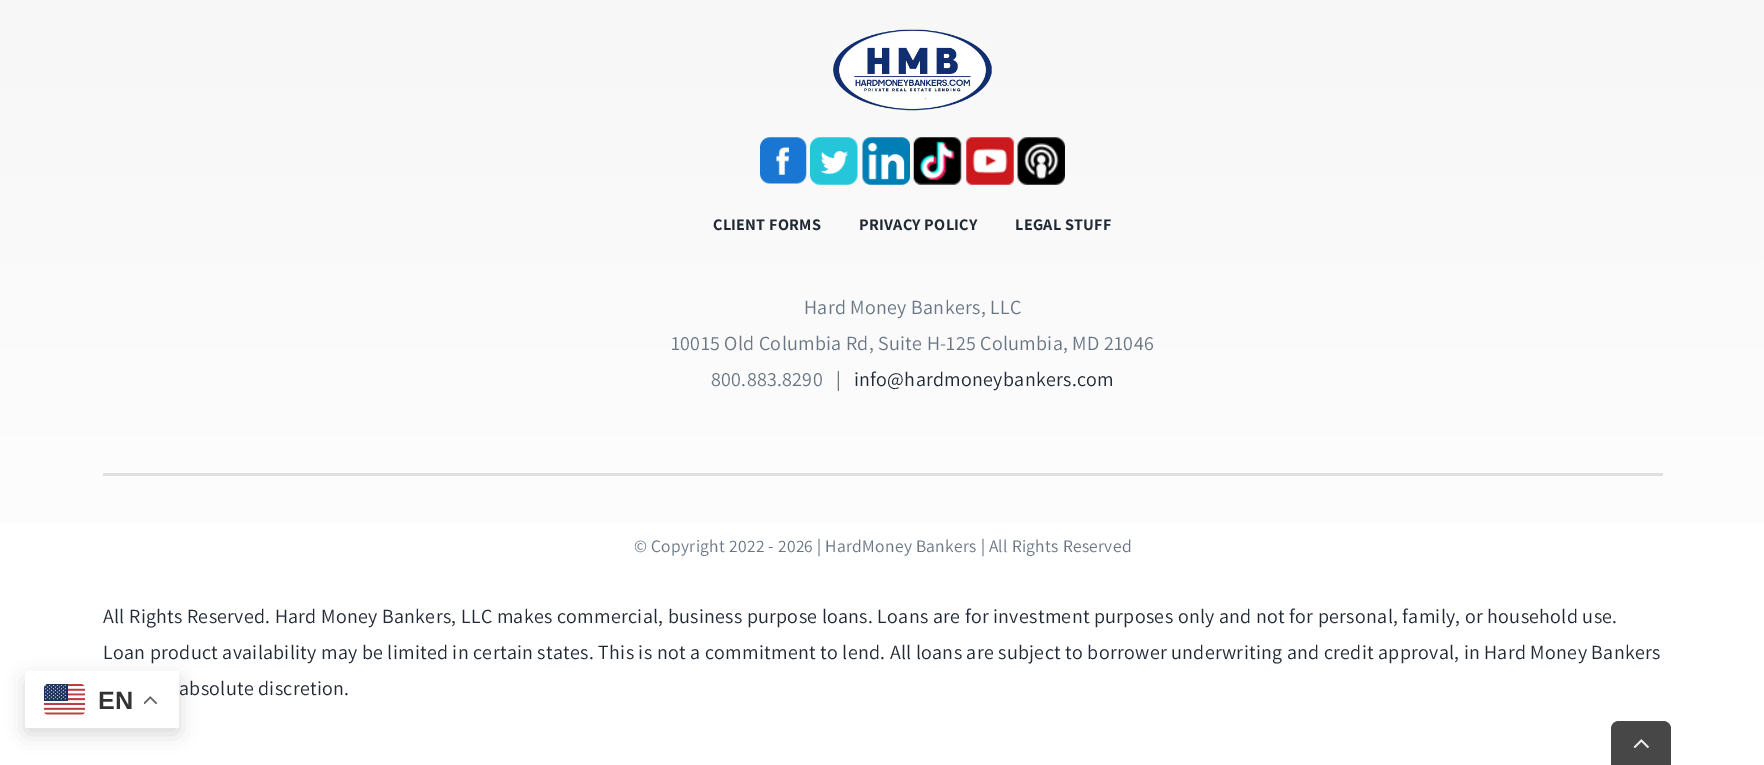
%!PS
<< /PageSize [1764 765] /PageUsesTransparency true >> setpagedevice
/alpha { dup .setfillconstantalpha .setstrokeconstantalpha } def
/roundrect { 5 dict begin { /r /h /w /y /x } { exch def } forall
  x r add y moveto x w add y 2 copy h add r arct x w add y h add x 1 index r arct
  x y h add x y r arct x y 2 copy exch w add exch r arct closepath end } def
/shadow { 12 dict begin { /a /b /q /h /w /y /x } { exch def } forall gsave /was 0 def
  9 -2 -9 { dup b mul 4 div /e exch def 1 sub .425 mul 2.718 exch exp 1 add a .99 .min exch div /now exch def
    1 1 now sub 1 was sub div sub alpha /was now def
    w h .min e 2 mul add 0 gt { x e sub y e sub w e 2 mul add h e 2 mul add
      q e add b .6 mul add w h .min 2 div e add .min 0 .max roundrect fill } if } for grestore end } def
/picture { 5 dict begin { /h /w /y /x /name } { exch def } forall
  gsave x y translate w h scale
  w h 8 [w 0 0 h 0 0] name (r) file false 3 colorimage grestore end } def
0 .pushpdf14devicefilter
0 765 translate 1 -1 scale
4 setmiterlimit
1 setgray
0 0 1764 765 rectfill
gsave newpath 0 0 moveto 1764 0 lineto 1764 523 lineto 0 523 lineto closepath clip newpath
<< /ShadingType 2 /ColorSpace /DeviceRGB /Coords [883 -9 883 765] /Extend [true true] /Function << /FunctionType 2 /Domain [0 1] /C0 [0.969 0.969 0.969] /C1 [1 1 1] /N 1 >> >> shfill grestore
(img1.rgb) 833 29 159 82 picture
(img2.rgb) 760 137 47 47 picture
(img3.rgb) 810 137 48 48 picture
(img4.rgb) 862 137 48 48 picture
(img5.rgb) 913 137 49 48 picture
(img6.rgb) 966 137 48 48 picture
(img7.rgb) 1017 137 48 48 picture
/Assistant-Bold [16.25 0 0 -16.25 0 0] selectfont
0.129 0.161 0.204 setrgbcolor
713 230 moveto 0.25 0 (CLIENT FORMS) ashow
859 230 moveto 0.25 0 (PRIVACY POLICY) ashow
1015 230 moveto 0.25 0 (LEGAL STUFF) ashow
/Assistant-Regular [20 0 0 -20 0 0] selectfont
0.416 0.463 0.518 setrgbcolor
804 314 moveto 0.3 0 (Hard Money Bankers, LLC) ashow
671 350 moveto 0.3 0 (10015 Old Columbia Rd, Suite H-125 Columbia, MD 21046) ashow
711 386 moveto 0.3 0 (800.883.8290   |) ashow
0.129 0.161 0.204 setrgbcolor
854 386 moveto 0.3 0 (info@hardmoneybankers.com) ashow
0.878 setgray
103 473 1560 3 rectfill
/Assistant-Regular [17.5 0 0 -17.5 0 0] selectfont
0.416 0.463 0.518 setrgbcolor
634 552 moveto 0.3 0 (© Copyright 2022 - 2026 | HardMoney Bankers | All Rights Reserved) ashow
/Assistant-Regular [20 0 0 -20 0 0] selectfont
0.129 0.161 0.204 setrgbcolor
103 623 moveto 0.3 0 (All Rights Reserved. Hard Money Bankers, LLC makes commercial, business purpose loans. Loans are for investment purposes only and not for personal, family, or household use.) ashow
103 659 moveto 0.3 0 (Loan product availability may be limited in certain states. This is not a commitment to lend. All loans are subject to borrower underwriting and credit approval, in Hard Money Bankers) ashow
179 695 moveto 0.3 0 (absolute discretion.) ashow
0 setgray
25 678 154 56 2.5 9.5 0.15 shadow
1 setgray
25 671 154 57 2.5 roundrect fill
(img8.rgb) 44 684 41 31 picture
/LiberationSans-Bold [25 0 0 -25 0 0] selectfont
0.2 setgray
98 709 moveto 0.3 0 (EN) ashow
(img9.rgb) 144 696 14 9 picture
0.278 setgray
newpath 1619 721 moveto 1663 721 lineto 1667.5 721 1671 724.5 1671 729 curveto 1671 765 lineto 1611 765 lineto 1611 729 lineto 1611 724.5 1614.5 721 1619 721 curveto closepath fill
(img10.rgb) 1633 739 16 10 picture
.poppdf14devicefilter showpage
